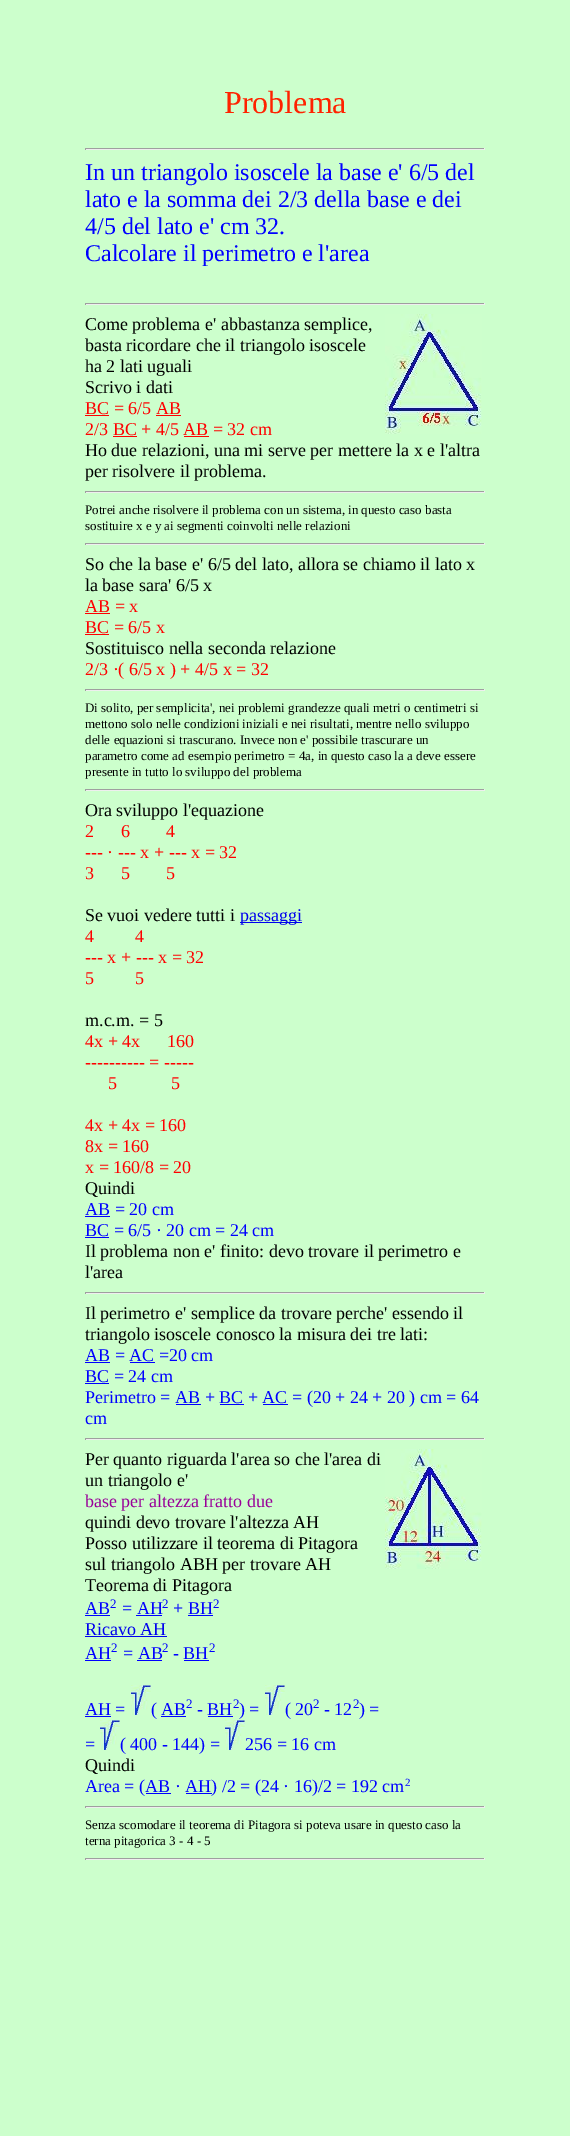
%!PS
<< /PageSize [570 2136] >> setpagedevice
/picture { 5 dict begin { /h /w /y /x /name } { exch def } forall
  gsave x y translate w h scale
  w h 8 [w 0 0 h 0 0] name (r) file false 3 colorimage grestore end } def
0 2136 translate 1 -1 scale
4 setmiterlimit
0.8 1 0.8 setrgbcolor
0 0 570 2136 rectfill
/LiberationSerif-Regular [32 0 0 -32 0 0] selectfont
1 0.133 0 setrgbcolor
224 113 moveto (Problema) show
0.624 setgray
85 148 400 1 rectfill
0.933 setgray
484 148 1 2 rectfill
85 149 400 1 rectfill
0.624 setgray
85 148 1 2 rectfill
/LiberationSerif-Regular [24 0 0 -24 0 0] selectfont
0 0 1 setrgbcolor
85 180 moveto (In un triangolo isoscele la base e' 6/5 del) show
85 207 moveto (lato e la somma dei 2/3 della base e dei) show
85 234 moveto (4/5 del lato e' cm 32.) show
85 261 moveto (Calcolare il perimetro e l'area) show
0.624 setgray
85 303 400 1 rectfill
0.933 setgray
484 303 1 2 rectfill
85 304 400 1 rectfill
0.624 setgray
85 303 1 2 rectfill
/LiberationSerif-Regular [18 0 0 -18 0 0] selectfont
0 setgray
85 330 moveto (Come problema e' abbastanza semplice,) show
(img1.rgb) 385 314 97 120 picture
85 351 moveto (basta ricordare che il triangolo isoscele) show
85 372 moveto (ha 2 lati uguali) show
85 393 moveto (Scrivo i dati) show
1 0 0 setrgbcolor
85 414 moveto (BC = 6/5 AB) show
85 415 24 1 rectfill
156 415 25 1 rectfill
85 435 moveto (2/3 BC + 4/5 AB = 32 cm) show
113 436 24 1 rectfill
184 436 25 1 rectfill
0 setgray
85 456 moveto (Ho due relazioni, una mi serve per mettere la x e l'altra) show
85 477 moveto (per risolvere il problema.) show
0.624 setgray
85 491 400 1 rectfill
0.933 setgray
484 491 1 2 rectfill
85 492 400 1 rectfill
0.624 setgray
85 491 1 2 rectfill
/LiberationSerif-Regular [13 0 0 -13 0 0] selectfont
0 setgray
85 514 moveto (Potrei anche risolvere il problema con un sistema, in questo caso basta) show
85 530 moveto (sostituire x e y ai segmenti coinvolti nelle relazioni) show
0.624 setgray
85 543 400 1 rectfill
0.933 setgray
484 543 1 2 rectfill
85 544 400 1 rectfill
0.624 setgray
85 543 1 2 rectfill
/LiberationSerif-Regular [18 0 0 -18 0 0] selectfont
0 setgray
85 570 moveto (So che la base e' 6/5 del lato, allora se chiamo il lato x) show
85 591 moveto (la base sara' 6/5 x) show
1 0 0 setrgbcolor
85 612 moveto (AB = x) show
85 613 25 1 rectfill
85 633 moveto (BC = 6/5 x) show
85 634 24 1 rectfill
0 setgray
85 654 moveto (Sostituisco nella seconda relazione) show
1 0 0 setrgbcolor
85 675 moveto (2/3 ·\( 6/5 x \) + 4/5 x = 32) show
0.624 setgray
85 689 400 1 rectfill
0.933 setgray
484 689 1 2 rectfill
85 690 400 1 rectfill
0.624 setgray
85 689 1 2 rectfill
/LiberationSerif-Regular [13 0 0 -13 0 0] selectfont
0 setgray
85 712 moveto (Di solito, per semplicita', nei problemi grandezze quali metri o centimetri si) show
85 728 moveto (mettono solo nelle condizioni iniziali e nei risultati, mentre nello sviluppo) show
85 744 moveto (delle equazioni si trascurano. Invece non e' possibile trascurare un) show
85 760 moveto (parametro come ad esempio perimetro = 4a, in questo caso la a deve essere) show
85 776 moveto (presente in tutto lo sviluppo del problema) show
0.624 setgray
85 789 400 1 rectfill
0.933 setgray
484 789 1 2 rectfill
85 790 400 1 rectfill
0.624 setgray
85 789 1 2 rectfill
/LiberationSerif-Regular [18 0 0 -18 0 0] selectfont
0 setgray
85 816 moveto (Ora sviluppo l'equazione) show
1 0 0 setrgbcolor
85 837 moveto (2      6) show
166 837 moveto (4) show
85 858 moveto (--- · --- x + --- x = 32) show
85 879 moveto (3      5) show
166 879 moveto (5) show
0 setgray
85 921 moveto (Se vuoi vedere tutti i) show
0 0 0.933 setrgbcolor
240 922 62 1 rectfill
240 921 moveto (passaggi) show
1 0 0 setrgbcolor
85 942 moveto (4) show
135 942 moveto (4) show
85 963 moveto (--- x + --- x = 32) show
85 984 moveto (5) show
135 984 moveto (5) show
0 setgray
85 1026 moveto (m.c.m. = 5) show
1 0 0 setrgbcolor
85 1047 moveto (4x + 4x      160) show
85 1068 moveto (---------- = -----) show
108 1089 moveto (5) show
171 1089 moveto (5) show
85 1131 moveto (4x + 4x = 160) show
85 1152 moveto (8x = 160) show
85 1173 moveto (x = 160/8 = 20) show
0 setgray
85 1194 moveto (Quindi) show
0 0 1 setrgbcolor
85 1215 moveto (AB = 20 cm) show
85 1216 25 1 rectfill
85 1236 moveto (BC = 6/5 · 20 cm = 24 cm) show
85 1237 24 1 rectfill
0 setgray
85 1257 moveto (Il problema non e' finito: devo trovare il perimetro e) show
85 1278 moveto (l'area) show
0.624 setgray
85 1292 400 1 rectfill
0.933 setgray
484 1292 1 2 rectfill
85 1293 400 1 rectfill
0.624 setgray
85 1292 1 2 rectfill
0 setgray
85 1319 moveto (Il perimetro e' semplice da trovare perche' essendo il) show
85 1340 moveto (triangolo isoscele conosco la misura dei tre lati:) show
0 0 1 setrgbcolor
85 1361 moveto (AB = AC =20 cm) show
85 1362 25 1 rectfill
130 1362 25 1 rectfill
85 1382 moveto (BC = 24 cm) show
85 1383 24 1 rectfill
85 1403 moveto (Perimetro = AB + BC + AC = \(20 + 24 + 20 \) cm = 64) show
176 1404 25 1 rectfill
220 1404 24 1 rectfill
263 1404 25 1 rectfill
85 1424 moveto (cm) show
0.624 setgray
85 1438 400 1 rectfill
0.933 setgray
484 1438 1 2 rectfill
85 1439 400 1 rectfill
0.624 setgray
85 1438 1 2 rectfill
0 setgray
85 1465 moveto (Per quanto riguarda l'area so che l'area di) show
(img2.rgb) 385 1449 97 120 picture
85 1486 moveto (un triangolo e') show
0.6 0 0.6 setrgbcolor
85 1507 moveto (base per altezza fratto due) show
0 setgray
85 1528 moveto (quindi devo trovare l'altezza AH) show
85 1549 moveto (Posso utilizzare il teorema di Pitagora) show
85 1570 moveto (sul triangolo ABH per trovare AH) show
85 1591 moveto (Teorema di Pitagora) show
0 0 1 setrgbcolor
85 1614 moveto (AB) show
85 1615 25 1 rectfill
/LiberationSerif-Regular [13 0 0 -13 0 0] selectfont
110 1608 moveto (2) show
/LiberationSerif-Regular [18 0 0 -18 0 0] selectfont
122 1614 moveto (= AH) show
136 1615 26 1 rectfill
/LiberationSerif-Regular [13 0 0 -13 0 0] selectfont
162 1608 moveto (2) show
/LiberationSerif-Regular [18 0 0 -18 0 0] selectfont
173 1614 moveto (+ BH) show
188 1615 25 1 rectfill
/LiberationSerif-Regular [13 0 0 -13 0 0] selectfont
213 1608 moveto (2) show
/LiberationSerif-Regular [18 0 0 -18 0 0] selectfont
0 0 0.933 setrgbcolor
85 1635 moveto (Ricavo AH) show
85 1636 82 1 rectfill
0 0 1 setrgbcolor
85 1659 moveto (AH) show
85 1660 26 1 rectfill
/LiberationSerif-Regular [13 0 0 -13 0 0] selectfont
111 1652 moveto (2) show
/LiberationSerif-Regular [18 0 0 -18 0 0] selectfont
123 1659 moveto (= AB) show
137 1660 25 1 rectfill
/LiberationSerif-Regular [13 0 0 -13 0 0] selectfont
162 1652 moveto (2) show
/LiberationSerif-Regular [18 0 0 -18 0 0] selectfont
173 1659 moveto (- BH) show
184 1660 25 1 rectfill
/LiberationSerif-Regular [13 0 0 -13 0 0] selectfont
209 1652 moveto (2) show
/LiberationSerif-Regular [18 0 0 -18 0 0] selectfont
85 1715 moveto (AH =) show
85 1716 26 1 rectfill
(img3.rgb) 131 1685 20 30 picture
151 1715 moveto (\( AB) show
161 1716 25 1 rectfill
/LiberationSerif-Regular [13 0 0 -13 0 0] selectfont
186 1708 moveto (2) show
/LiberationSerif-Regular [18 0 0 -18 0 0] selectfont
197 1715 moveto (- BH) show
208 1716 25 1 rectfill
/LiberationSerif-Regular [13 0 0 -13 0 0] selectfont
233 1708 moveto (2) show
/LiberationSerif-Regular [18 0 0 -18 0 0] selectfont
239 1715 moveto (\) =) show
(img3.rgb) 265 1685 20 30 picture
285 1715 moveto (\( 20) show
/LiberationSerif-Regular [13 0 0 -13 0 0] selectfont
313 1708 moveto (2) show
/LiberationSerif-Regular [18 0 0 -18 0 0] selectfont
324 1715 moveto (- 12) show
/LiberationSerif-Regular [13 0 0 -13 0 0] selectfont
353 1708 moveto (2) show
/LiberationSerif-Regular [18 0 0 -18 0 0] selectfont
359 1715 moveto (\) =) show
85 1750 moveto (=) show
(img3.rgb) 100 1720 20 30 picture
120 1750 moveto (\( 400 - 144\) =) show
(img3.rgb) 225 1720 20 30 picture
245 1750 moveto (256 = 16 cm) show
0 setgray
85 1771 moveto (Quindi) show
0 0 1 setrgbcolor
85 1792 moveto (Area = \(AB · AH\) /2 = \(24 · 16\)/2 = 192 cm) show
146 1793 25 1 rectfill
186 1793 26 1 rectfill
/LiberationSerif-Regular [11 0 0 -11 0 0] selectfont
405 1786 moveto (2) show
0.624 setgray
85 1806 400 1 rectfill
0.933 setgray
484 1806 1 2 rectfill
85 1807 400 1 rectfill
0.624 setgray
85 1806 1 2 rectfill
/LiberationSerif-Regular [13 0 0 -13 0 0] selectfont
0 setgray
85 1829 moveto (Senza scomodare il teorema di Pitagora si poteva usare in questo caso la) show
85 1845 moveto (terna pitagorica 3 - 4 - 5) show
0.624 setgray
85 1858 400 1 rectfill
0.933 setgray
484 1858 1 2 rectfill
85 1859 400 1 rectfill
0.624 setgray
85 1858 1 2 rectfill
showpage
